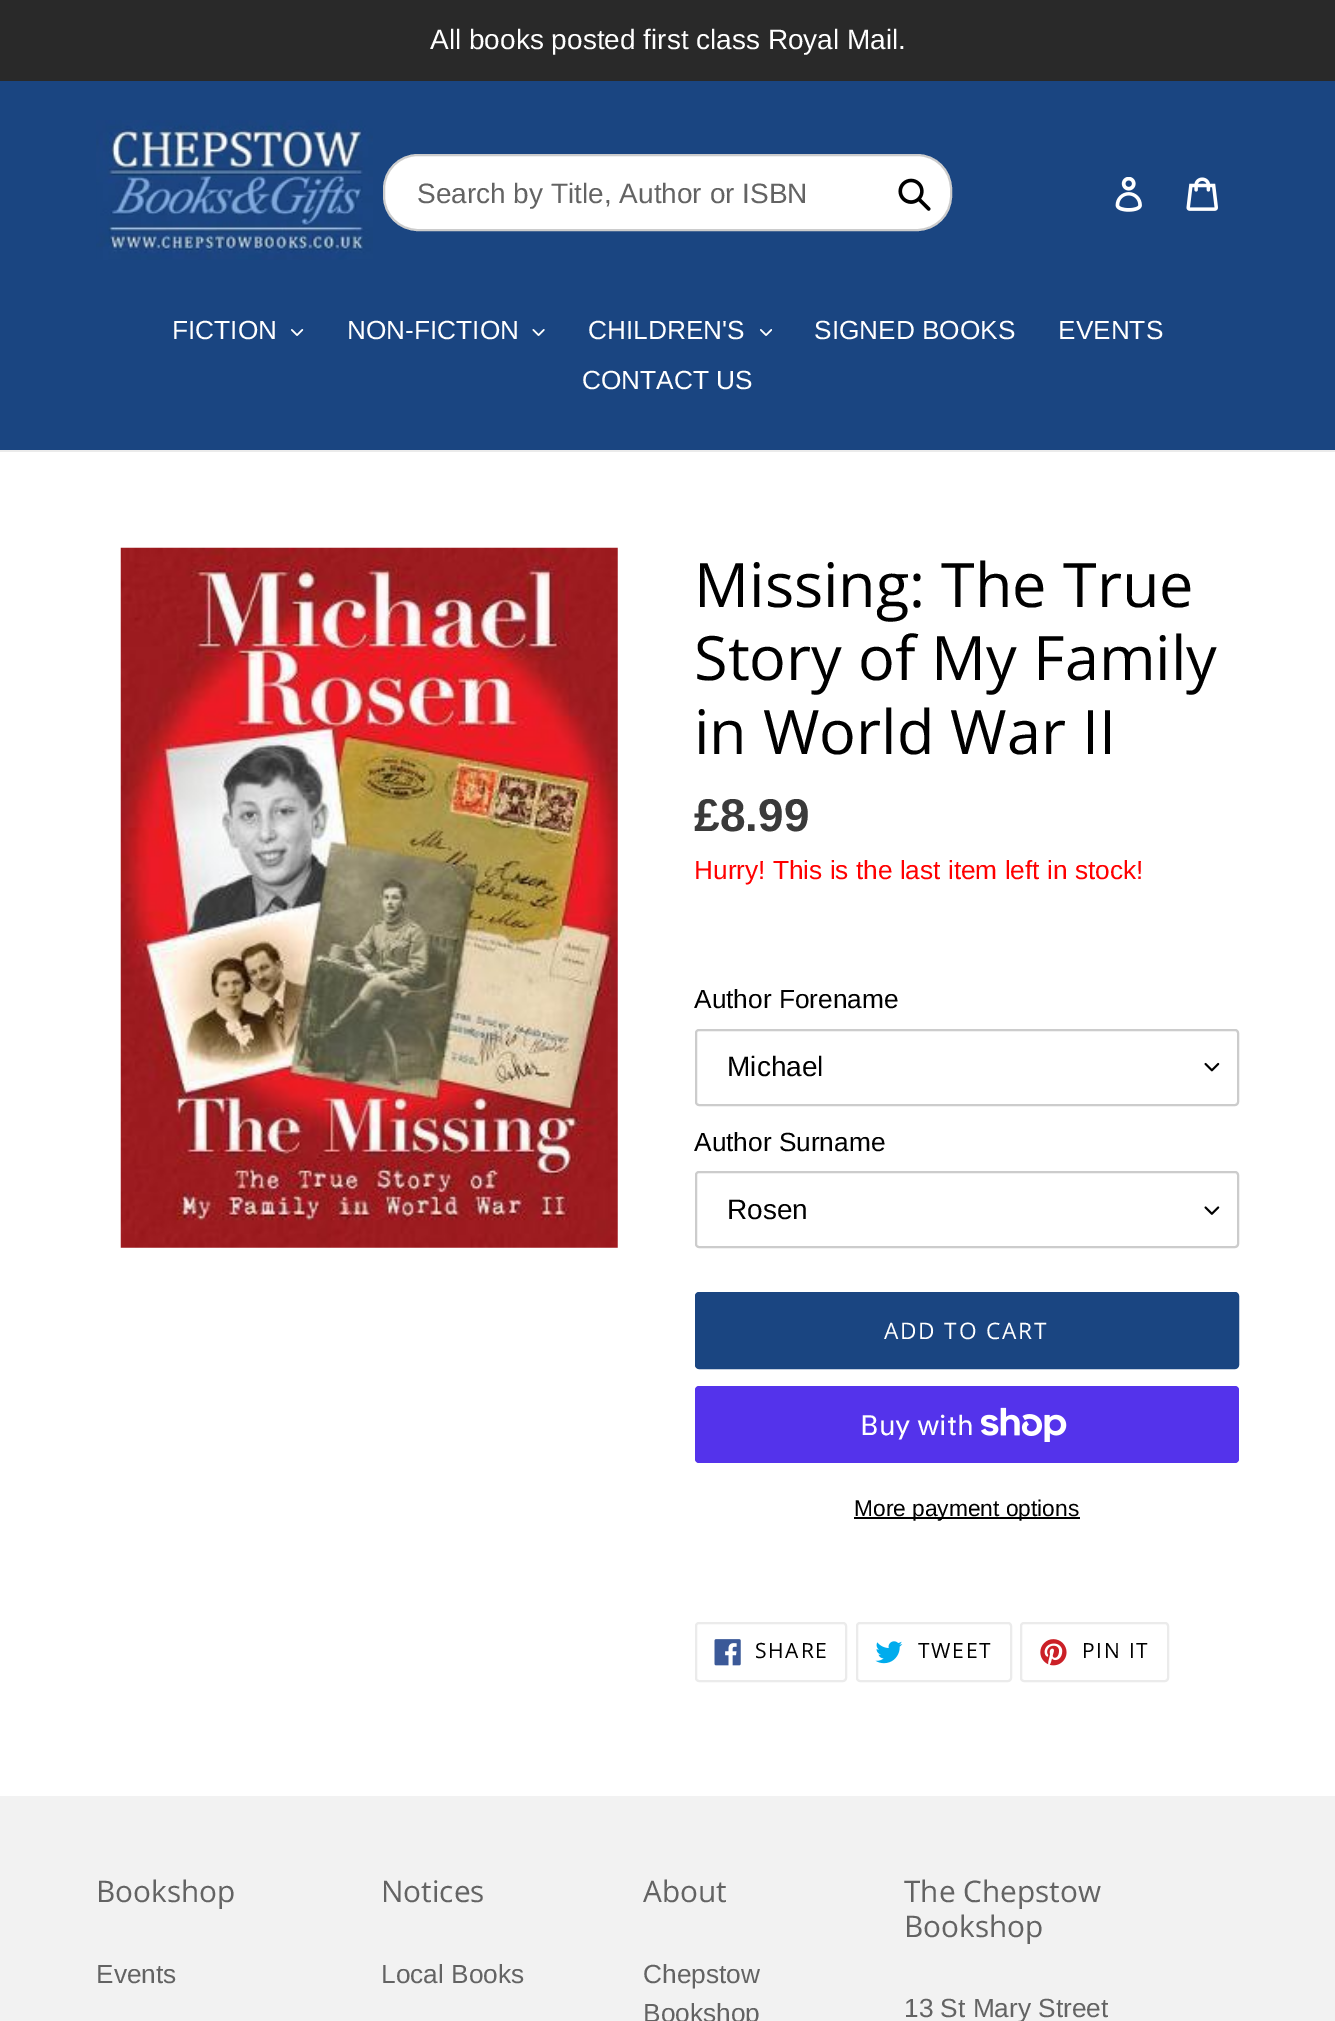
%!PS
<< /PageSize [1335 2021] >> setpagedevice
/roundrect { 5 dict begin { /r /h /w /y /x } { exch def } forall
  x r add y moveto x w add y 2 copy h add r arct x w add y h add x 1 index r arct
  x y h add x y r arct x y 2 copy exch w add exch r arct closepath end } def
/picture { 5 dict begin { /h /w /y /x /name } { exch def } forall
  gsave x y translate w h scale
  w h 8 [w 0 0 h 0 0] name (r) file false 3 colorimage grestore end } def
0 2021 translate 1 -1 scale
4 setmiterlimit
1 setgray
0 0 1335 2021 rectfill
0.161 setgray
0 0 1335 81 rectfill
/LiberationSans-Regular [28 0 0 -28 0 0] selectfont
1 setgray
430 49 moveto (All books posted first class Royal Mail.) show
0.102 0.271 0.506 setrgbcolor
0 81 1335 369 rectfill
0.922 setgray
0 450 1335 2 rectfill
(img1.rgb) 96 120 277 140 picture
1 setgray
384 155 567 75 34 roundrect gsave fill grestore
0.8 setgray
2 setlinewidth
stroke
0.388 setgray
417 203 moveto (Search by Title, Author or ISBN) show
(img2.rgb) 898 178 33 33 picture
(img3.rgb) 1115 177 27 35 picture
(img4.rgb) 1186 177 32 34 picture
/LiberationSans-Regular [26.25 0 0 -26.25 0 0] selectfont
1 setgray
172 339 moveto (FICTION) show
(img5.rgb) 291 329 13 7 picture
347 339 moveto (NON-FICTION) show
(img6.rgb) 532 329 13 7 picture
588 339 moveto (CHILDREN'S) show
(img7.rgb) 760 329 12 7 picture
814 339 moveto (SIGNED BOOKS) show
1058 339 moveto (EVENTS) show
582 389 moveto (CONTACT US) show
(img8.rgb) 120 547 498 701 picture
/OpenSans-Regular [61.25 0 0 -61.25 0 0] selectfont
0 setgray
694 607 moveto (Missing: The True) show
694 680 moveto (Story of My Family) show
694 754 moveto (in World War II) show
/LiberationSans-Bold [46 0 0 -46 0 0] selectfont
0.227 setgray
694 831 moveto (£8.99) show
/LiberationSans-Regular [26.25 0 0 -26.25 0 0] selectfont
1 0 0 setrgbcolor
694 879 moveto (Hurry! This is the last item left in stock!) show
0 setgray
694 1008 moveto (Author Forename) show
(img9.rgb) 1204 1062 16 10 picture
0.8 setgray
696 1030 542 75 3 roundrect stroke
/LiberationSans-Regular [28 0 0 -28 0 0] selectfont
0 setgray
727 1076 moveto (Michael) show
/LiberationSans-Regular [26.25 0 0 -26.25 0 0] selectfont
694 1151 moveto (Author Surname) show
(img10.rgb) 1204 1206 16 9 picture
0.8 setgray
696 1172 542 75 3 roundrect stroke
/LiberationSans-Regular [28 0 0 -28 0 0] selectfont
0 setgray
727 1219 moveto (Rosen) show
0.102 0.271 0.506 setrgbcolor
696 1293 542 75 3 roundrect gsave fill grestore
stroke
/OpenSans-Regular [22.75 0 0 -22.75 0 0] selectfont
1 setgray
884 1339 moveto 1.75 0 (ADD TO CART) ashow
0.329 0.2 0.922 setrgbcolor
695 1386 544 77 4 roundrect fill
/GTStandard-Regular [28 0 0 -28 0 0] selectfont
1 setgray
860 1435 moveto (Buy with) show
(img11.rgb) 981 1407 86 35 picture
0 setgray
854 1517 226 2 rectfill
/LiberationSans-Regular [22.75 0 0 -22.75 0 0] selectfont
854 1516 moveto (More payment options) show
0.922 setgray
696 1623 150 58 3 roundrect stroke
(img12.rgb) 714 1639 27 27 picture
/OpenSans-Regular [21 0 0 -21 0 0] selectfont
0 setgray
755 1658 moveto 1.75 0 (SHARE) ashow
0.922 setgray
857 1623 154 58 3 roundrect stroke
(img13.rgb) 875 1641 28 23 picture
0 setgray
918 1658 moveto 1.75 0 (TWEET) ashow
0.922 setgray
1021 1623 147 58 3 roundrect stroke
(img14.rgb) 1040 1639 27 27 picture
0 setgray
1082 1658 moveto 1.75 0 (PIN IT) ashow
0.949 setgray
0 1796 1335 225 rectfill
/OpenSans-Regular [29.75 0 0 -29.75 0 0] selectfont
0.388 setgray
96 1902 moveto (Bookshop) show
/LiberationSans-Regular [26.25 0 0 -26.25 0 0] selectfont
96 1983 moveto (Events) show
/OpenSans-Regular [29.75 0 0 -29.75 0 0] selectfont
381 1902 moveto (Notices) show
/LiberationSans-Regular [26.25 0 0 -26.25 0 0] selectfont
381 1983 moveto (Local Books) show
/OpenSans-Regular [29.75 0 0 -29.75 0 0] selectfont
643 1902 moveto (About) show
/LiberationSans-Regular [26.25 0 0 -26.25 0 0] selectfont
643 1983 moveto (Chepstow) show
643 2022 moveto (Bookshop) show
/OpenSans-Regular [29.75 0 0 -29.75 0 0] selectfont
904 1902 moveto (The Chepstow) show
904 1937 moveto (Bookshop) show
/LiberationSans-Regular [26.25 0 0 -26.25 0 0] selectfont
904 2017 moveto (13 St Mary Street) show
showpage
